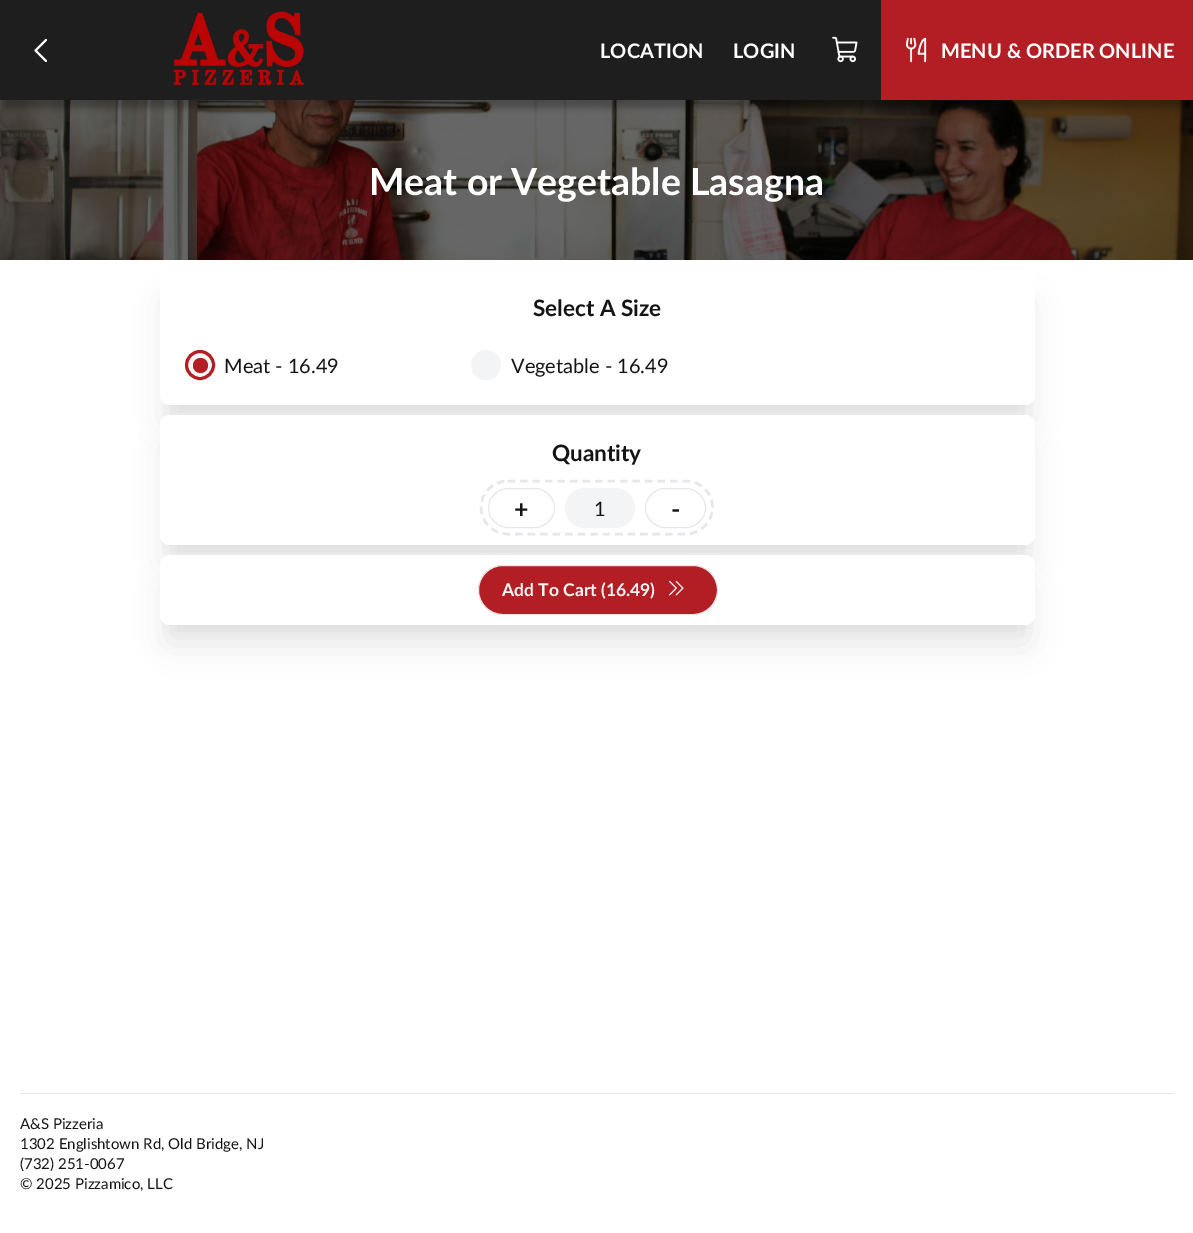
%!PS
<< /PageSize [1193 1233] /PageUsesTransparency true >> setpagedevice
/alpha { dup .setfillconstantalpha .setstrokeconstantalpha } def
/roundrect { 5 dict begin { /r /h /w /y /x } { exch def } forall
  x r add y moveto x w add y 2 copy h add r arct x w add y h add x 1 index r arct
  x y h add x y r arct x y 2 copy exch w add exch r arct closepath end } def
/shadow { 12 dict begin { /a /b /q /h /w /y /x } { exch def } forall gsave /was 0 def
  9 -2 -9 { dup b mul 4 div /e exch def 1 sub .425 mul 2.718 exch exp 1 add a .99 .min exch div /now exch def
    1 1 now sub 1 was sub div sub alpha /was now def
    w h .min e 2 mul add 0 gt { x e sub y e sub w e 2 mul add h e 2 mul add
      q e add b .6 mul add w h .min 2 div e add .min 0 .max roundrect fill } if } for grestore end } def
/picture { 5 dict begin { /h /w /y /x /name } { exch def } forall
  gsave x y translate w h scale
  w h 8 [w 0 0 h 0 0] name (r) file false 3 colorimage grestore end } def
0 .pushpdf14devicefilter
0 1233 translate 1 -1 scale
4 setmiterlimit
1 setgray
0 0 1193 1233 rectfill
0 setgray
166 301 863 123 4 15.5 0.1 shadow
(img4.rgb) 0 100 1193 160 picture
5 18 1184 90 0 3 0.25 shadow
0.118 setgray
0 0 881 100 rectfill
1 setgray
2.1 setlinewidth
1 setlinecap
1 setlinejoin
newpath 46 61 moveto 35.5 50.5 lineto 46 40 lineto stroke
(img1.rgb) 173 11 132 75 picture
/Lato-Bold [20 0 0 -20 0 0] selectfont
600 58 moveto (LOCATION) show
733 58 moveto (LOGIN) show
(img2.rgb) 832 36 26 27 picture
0.698 0.118 0.137 setrgbcolor
881 0 312 100 rectfill
(img3.rgb) 905 37 22 26 picture
1 setgray
941 58 moveto (MENU & ORDER ONLINE) show
/Lato-Bold [37.5 0 0 -37.5 0 0] selectfont
369 195 moveto (Meat or Vegetable Lasagna) show
0 setgray
166 289 863 122 4 6 0.04 shadow
1 setgray
160 270 875 135 10 roundrect fill
/Lato-Bold [22.5 0 0 -22.5 0 0] selectfont
0.078 setgray
533 316 moveto (Select A Size) show
0.953 0.957 0.965 setrgbcolor
newpath 200 365 13.5 0 360 arc closepath gsave fill grestore
0.698 0.118 0.137 setrgbcolor
3 setlinewidth
0 setlinecap
0 setlinejoin
stroke
newpath 200.5 365.5 7.5 0 360 arc closepath fill
/Lato-Regular [20 0 0 -20 0 0] selectfont
0.078 setgray
224 373 moveto (Meat - 16.49) show
0.953 0.957 0.965 setrgbcolor
newpath 486 365 15 0 360 arc closepath fill
0.078 setgray
511 373 moveto (Vegetable - 16.49) show
0 setgray
166 434 863 117 4 6 0.04 shadow
166 446 863 118 4 15.5 0.1 shadow
1 setgray
160 415 875 130 10 roundrect fill
/Lato-Bold [22.5 0 0 -22.5 0 0] selectfont
0.078 setgray
552 461 moveto (Quantity) show
0.898 0.906 0.922 setrgbcolor
2.5 setlinewidth
[7.5 5] 0 setdash
newpath 507.5 481 moveto 686 481 lineto 700.5 481 712.5 493 712.5 507.5 curveto 712.5 522 700.5 534 686 534 curveto 507.5 534 lineto 493 534 481 522 481 507.5 curveto 481 493 493 481 507.5 481 curveto closepath stroke
1 setlinewidth
[] 0 setdash
488.5 488.5 66 39 19.5 roundrect stroke
/Lato-Bold [25 0 0 -25 0 0] selectfont
0.078 setgray
514 518 moveto (+) show
0.953 0.957 0.965 setrgbcolor
565 488 70 40 20 roundrect fill
/Lato-Regular [20 0 0 -20 0 0] selectfont
0.078 setgray
594 516 moveto (1) show
0.898 0.906 0.922 setrgbcolor
645.5 488.5 60 39 19.5 roundrect stroke
/Lato-Bold [25 0 0 -25 0 0] selectfont
0.078 setgray
671 518 moveto (-) show
0 setgray
166 574 863 57 4 6 0.04 shadow
166 586 863 58 4 15.5 0.1 shadow
1 setgray
160 555 875 70 10 roundrect fill
0.698 0.118 0.137 setrgbcolor
478.5 565.5 239 49 24.5 roundrect gsave fill grestore
0.898 0.906 0.922 setrgbcolor
stroke
/Lato-Bold [17.5 0 0 -17.5 0 0] selectfont
0.961 setgray
502 596 moveto (Add To Cart \(16.49\)) show
(img5.rgb) 669 580 15 16 picture
0.898 0.906 0.922 setrgbcolor
20 1093 1154 1 rectfill
/Lato-Regular [15 0 0 -15 0 0] selectfont
0.078 setgray
20 1129 moveto (A&S Pizzeria) show
20 1149 moveto (1302 Englishtown Rd, Old Bridge, NJ) show
20 1169 moveto (\(732\) 251-0067) show
20 1189 moveto (© 2025 Pizzamico, LLC) show
.poppdf14devicefilter showpage
